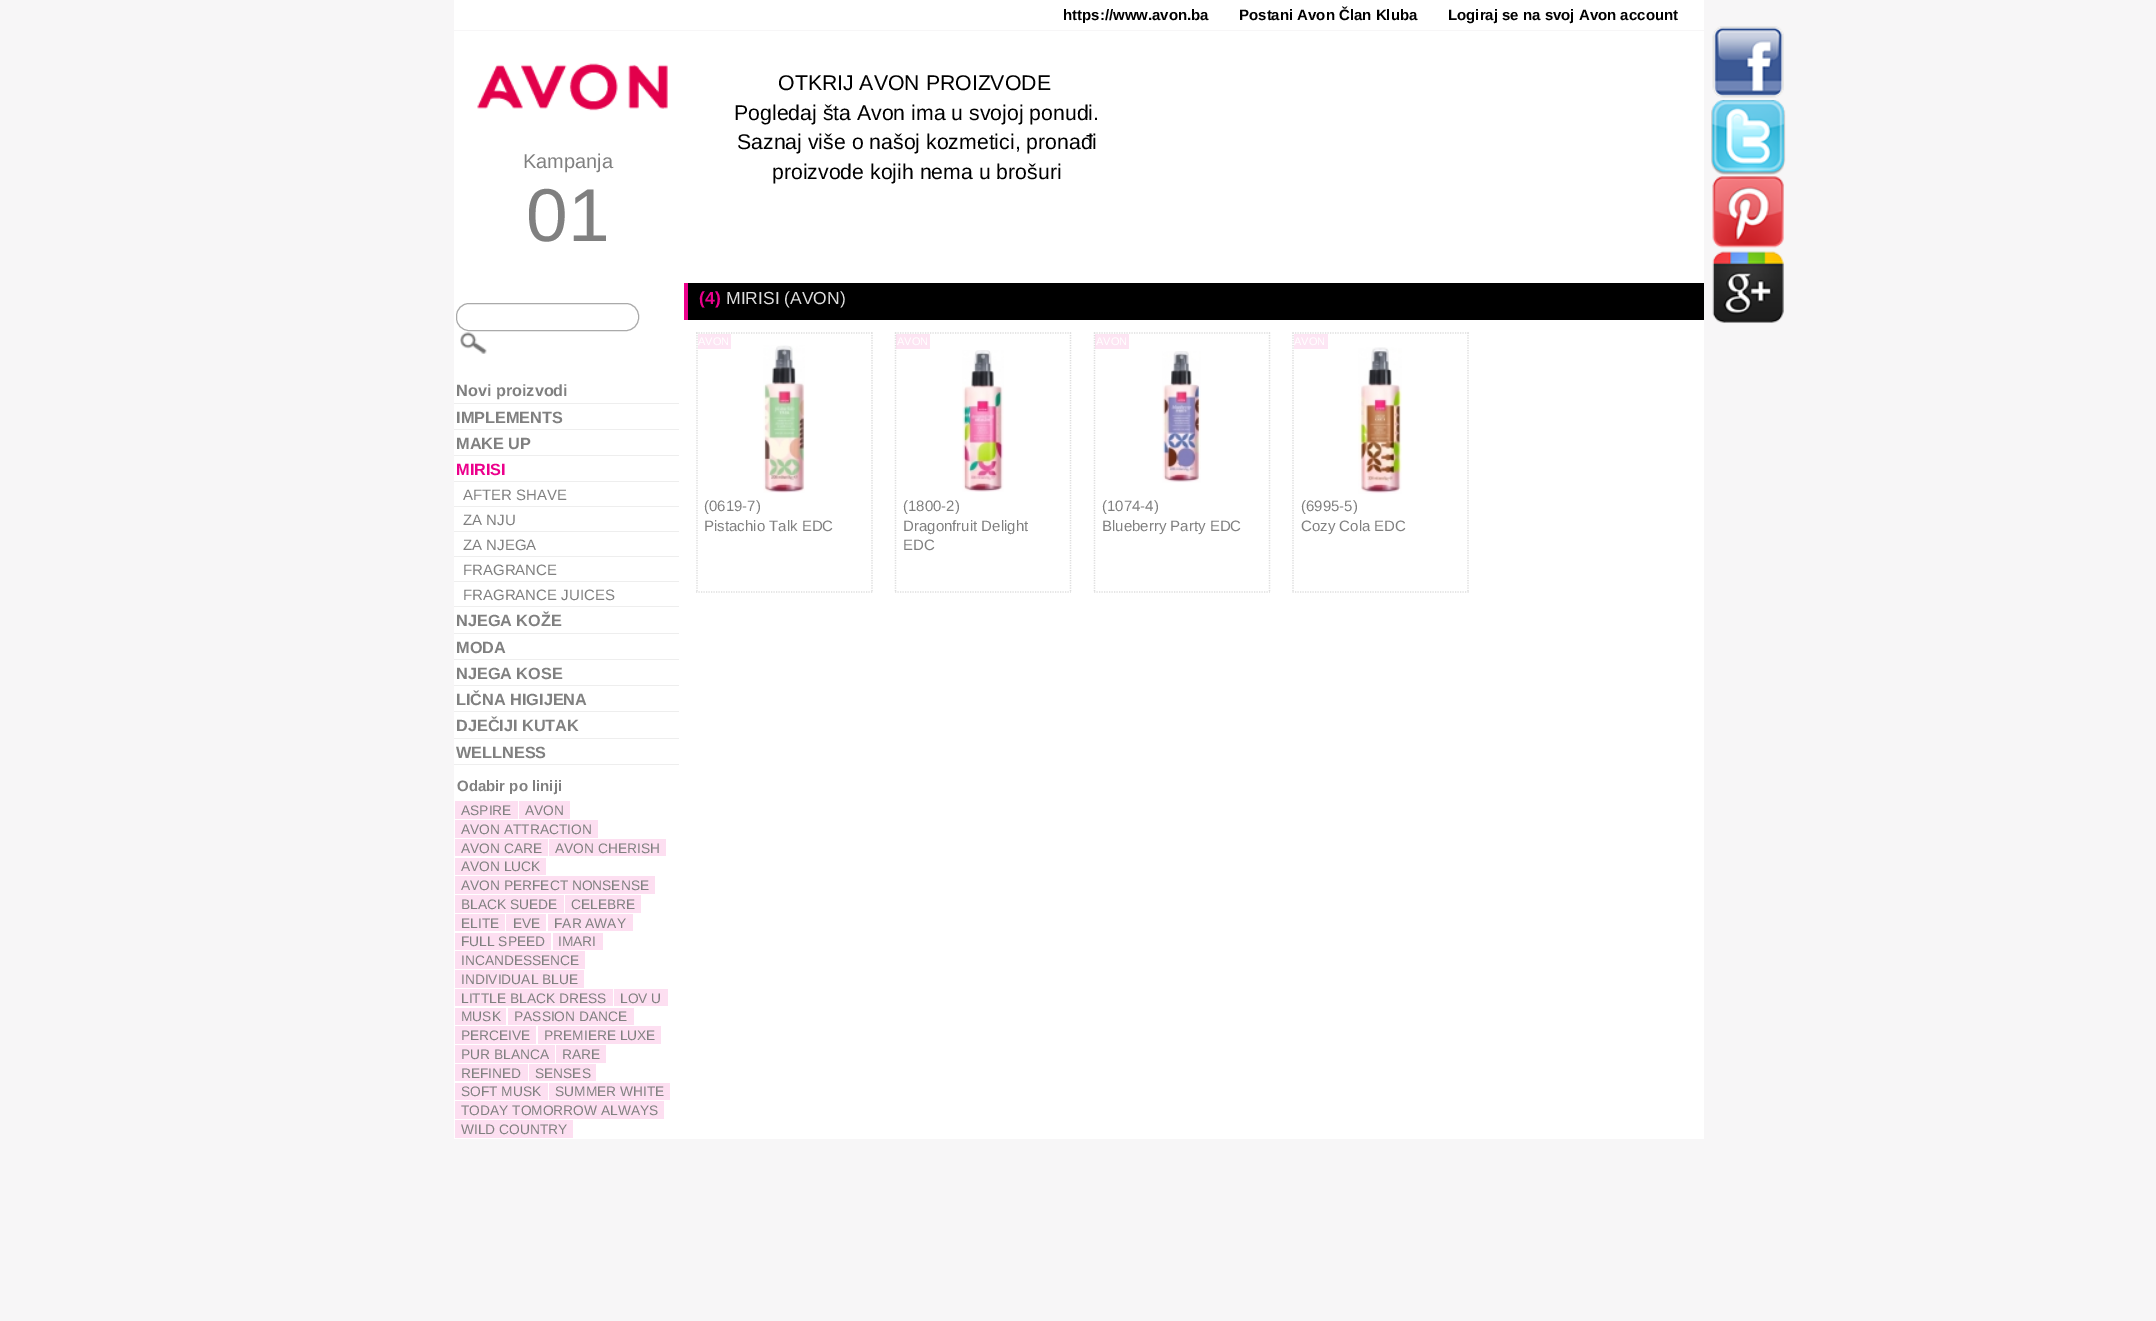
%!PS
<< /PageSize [2156 1321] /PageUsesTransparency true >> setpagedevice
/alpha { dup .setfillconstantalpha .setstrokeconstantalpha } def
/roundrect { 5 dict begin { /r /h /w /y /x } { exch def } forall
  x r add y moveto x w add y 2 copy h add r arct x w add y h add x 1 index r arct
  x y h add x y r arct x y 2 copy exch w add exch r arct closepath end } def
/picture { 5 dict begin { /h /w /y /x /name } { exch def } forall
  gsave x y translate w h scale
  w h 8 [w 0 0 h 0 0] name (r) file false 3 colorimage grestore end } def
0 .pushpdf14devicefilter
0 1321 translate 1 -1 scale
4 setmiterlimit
0.969 0.965 0.969 setrgbcolor
0 0 2156 1321 rectfill
1 setgray
454 0 1250 1139 rectfill
0.969 0.965 0.969 setrgbcolor
454 30 1250 1 rectfill
/LiberationSans-Bold [15 0 0 -15 0 0] selectfont
0 setgray
1063 20 moveto (https://www.avon.ba) show
1239 20 moveto (Postani Avon Član Kluba) show
1448 20 moveto (Logiraj se na svoj Avon account) show
/LiberationSans-Regular [21.25 0 0 -21.25 0 0] selectfont
778 90 moveto (OTKRIJ AVON PROIZVODE) show
734 120 moveto (Pogledaj šta Avon ima u svojoj ponudi.) show
737 149 moveto (Saznaj više o našoj kozmetici, pronađi) show
772 179 moveto (proizvode kojih nema u brošuri) show
(img1.rgb) 477 63 191 48 picture
/LiberationSans-Regular [20 0 0 -20 0 0] selectfont
0.502 setgray
523 168 moveto (Kampanja) show
/LiberationSans-Regular [75 0 0 -75 0 0] selectfont
526 241 moveto (01) show
(img2.rgb) 1712 26 72 72 picture
(img3.rgb) 1711 100 75 75 picture
(img4.rgb) 1712 176 72 72 picture
(img5.rgb) 1712 251 72 72 picture
0.667 setgray
456.5 303.5 182 27 12.5 roundrect stroke
(img6.rgb) 460 332 27 22 picture
0.933 setgray
454 403 225 1 rectfill
/LiberationSans-Bold [16.25 0 0 -16.25 0 0] selectfont
0.502 setgray
456 396 moveto (Novi proizvodi) show
0.933 setgray
454 429 225 1 rectfill
0.502 setgray
456 423 moveto (IMPLEMENTS) show
0.933 setgray
454 455 225 1 rectfill
0.502 setgray
456 449 moveto (MAKE UP) show
0.933 setgray
454 481 225 1 rectfill
0.925 0 0.549 setrgbcolor
456 475 moveto (MIRISI) show
0.933 setgray
454 506 225 1 rectfill
/LiberationSans-Regular [15 0 0 -15 0 0] selectfont
0.502 setgray
463 500 moveto (AFTER SHAVE) show
0.933 setgray
454 531 225 1 rectfill
0.502 setgray
463 525 moveto (ZA NJU) show
0.933 setgray
454 556 225 1 rectfill
0.502 setgray
463 550 moveto (ZA NJEGA) show
0.933 setgray
454 581 225 1 rectfill
0.502 setgray
463 575 moveto (FRAGRANCE) show
0.933 setgray
454 606 225 1 rectfill
0.502 setgray
463 600 moveto (FRAGRANCE JUICES) show
0.933 setgray
454 633 225 1 rectfill
/LiberationSans-Bold [16.25 0 0 -16.25 0 0] selectfont
0.502 setgray
456 626 moveto (NJEGA KOŽE) show
0.933 setgray
454 659 225 1 rectfill
0.502 setgray
456 653 moveto (MODA) show
0.933 setgray
454 685 225 1 rectfill
0.502 setgray
456 679 moveto (NJEGA KOSE) show
0.933 setgray
454 711 225 1 rectfill
0.502 setgray
456 705 moveto (LIČNA HIGIJENA) show
0.933 setgray
454 738 225 1 rectfill
0.502 setgray
456 731 moveto (DJEČIJI KUTAK) show
0.933 setgray
454 764 225 1 rectfill
0.502 setgray
456 758 moveto (WELLNESS) show
/LiberationSans-Bold [15 0 0 -15 0 0] selectfont
457 791 moveto (Odabir po liniji) show
0.992 0.875 0.945 setrgbcolor
455 801 63 18 rectfill
/LiberationSans-Regular [13.75 0 0 -13.75 0 0] selectfont
0.502 setgray
461 815 moveto (ASPIRE) show
0.992 0.875 0.945 setrgbcolor
519 801 51 18 rectfill
0.502 setgray
525 815 moveto (AVON) show
0.992 0.875 0.945 setrgbcolor
455 820 143 18 rectfill
0.502 setgray
461 834 moveto (AVON ATTRACTION) show
0.992 0.875 0.945 setrgbcolor
455 839 93 17 rectfill
0.502 setgray
461 853 moveto (AVON CARE) show
0.992 0.875 0.945 setrgbcolor
549 839 117 17 rectfill
0.502 setgray
555 853 moveto (AVON CHERISH) show
0.992 0.875 0.945 setrgbcolor
455 858 91 17 rectfill
0.502 setgray
461 871 moveto (AVON LUCK) show
0.992 0.875 0.945 setrgbcolor
455 876 200 18 rectfill
0.502 setgray
461 890 moveto (AVON PERFECT NONSENSE) show
0.992 0.875 0.945 setrgbcolor
455 895 109 18 rectfill
0.502 setgray
461 909 moveto (BLACK SUEDE) show
0.992 0.875 0.945 setrgbcolor
565 895 76 18 rectfill
0.502 setgray
571 909 moveto (CELEBRE) show
0.992 0.875 0.945 setrgbcolor
455 914 50 17 rectfill
0.502 setgray
461 928 moveto (ELITE) show
0.992 0.875 0.945 setrgbcolor
506 914 40 17 rectfill
0.502 setgray
513 928 moveto (EVE) show
0.992 0.875 0.945 setrgbcolor
548 914 85 17 rectfill
0.502 setgray
554 928 moveto (FAR AWAY) show
0.992 0.875 0.945 setrgbcolor
455 933 96 17 rectfill
0.502 setgray
461 946 moveto (FULL SPEED) show
0.992 0.875 0.945 setrgbcolor
553 933 50 17 rectfill
0.502 setgray
558 946 moveto (IMARI) show
0.992 0.875 0.945 setrgbcolor
455 951 130 18 rectfill
0.502 setgray
461 965 moveto (INCANDESSENCE) show
0.992 0.875 0.945 setrgbcolor
455 970 129 18 rectfill
0.502 setgray
461 984 moveto (INDIVIDUAL BLUE) show
0.992 0.875 0.945 setrgbcolor
455 989 158 17 rectfill
0.502 setgray
461 1003 moveto (LITTLE BLACK DRESS) show
0.992 0.875 0.945 setrgbcolor
614 989 54 17 rectfill
0.502 setgray
620 1003 moveto (LOV U) show
0.992 0.875 0.945 setrgbcolor
455 1008 51 17 rectfill
0.502 setgray
461 1021 moveto (MUSK) show
0.992 0.875 0.945 setrgbcolor
508 1008 126 17 rectfill
0.502 setgray
514 1021 moveto (PASSION DANCE) show
0.992 0.875 0.945 setrgbcolor
455 1026 81 18 rectfill
0.502 setgray
461 1040 moveto (PERCEIVE) show
0.992 0.875 0.945 setrgbcolor
538 1026 123 18 rectfill
0.502 setgray
544 1040 moveto (PREMIERE LUXE) show
0.992 0.875 0.945 setrgbcolor
455 1045 100 18 rectfill
0.502 setgray
461 1059 moveto (PUR BLANCA) show
0.992 0.875 0.945 setrgbcolor
556 1045 50 18 rectfill
0.502 setgray
562 1059 moveto (RARE) show
0.992 0.875 0.945 setrgbcolor
455 1064 73 17 rectfill
0.502 setgray
461 1078 moveto (REFINED) show
0.992 0.875 0.945 setrgbcolor
529 1064 67 17 rectfill
0.502 setgray
535 1078 moveto (SENSES) show
0.992 0.875 0.945 setrgbcolor
455 1083 93 17 rectfill
0.502 setgray
461 1096 moveto (SOFT MUSK) show
0.992 0.875 0.945 setrgbcolor
549 1083 121 17 rectfill
0.502 setgray
555 1096 moveto (SUMMER WHITE) show
0.992 0.875 0.945 setrgbcolor
455 1101 209 18 rectfill
0.502 setgray
461 1115 moveto (TODAY TOMORROW ALWAYS) show
0.992 0.875 0.945 setrgbcolor
455 1120 118 18 rectfill
0.502 setgray
461 1134 moveto (WILD COUNTRY) show
0 setgray
688 283 1016 37 rectfill
0.925 0 0.549 setrgbcolor
684 283 4 37 rectfill
/LiberationSans-Bold [17.5 0 0 -17.5 0 0] selectfont
699 304 moveto (\(4\)) show
/LiberationSans-Regular [17.5 0 0 -17.5 0 0] selectfont
0.867 setgray
726 304 moveto (MIRISI \(AVON\)) show
0.992 0.902 0.957 setrgbcolor
698 334 33 15 rectfill
/LiberationSans-Regular [11 0 0 -11 0 0] selectfont
1 setgray
698 345 moveto (AVON) show
0.867 setgray
1.2 setlinewidth
[1.25 1.25] 0 setdash
newpath 696 333 moveto 872.5 333 lineto stroke
newpath 872 332.5 moveto 872 592.5 lineto stroke
newpath 696 592 moveto 872.5 592 lineto stroke
newpath 697 332.5 moveto 697 592.5 lineto stroke
(img7.rgb) 763 345 42 148 picture
/LiberationSans-Regular [15 0 0 -15 0 0] selectfont
0.502 setgray
704 511 moveto (\(0619-7\)) show
704 531 moveto (Pistachio Talk EDC) show
0.867 setgray
newpath 895 333 moveto 1071 333 lineto stroke
newpath 1070.5 332.5 moveto 1070.5 592.5 lineto stroke
newpath 895 592 moveto 1071 592 lineto stroke
newpath 895.5 332.5 moveto 895.5 592.5 lineto stroke
0.1 alpha
0.925 0 0.549 setrgbcolor
896 334 34 15 rectfill
/LiberationSans-Regular [11 0 0 -11 0 0] selectfont
1 alpha
1 setgray
897 345 moveto (AVON) show
(img8.rgb) 962 350 42 142 picture
/LiberationSans-Regular [15 0 0 -15 0 0] selectfont
0.502 setgray
903 511 moveto (\(1800-2\)) show
903 531 moveto (Dragonfruit Delight) show
903 550 moveto (EDC) show
0.867 setgray
newpath 1094 333 moveto 1270 333 lineto stroke
newpath 1269.5 332.5 moveto 1269.5 592.5 lineto stroke
newpath 1094 592 moveto 1270 592 lineto stroke
newpath 1094.5 332.5 moveto 1094.5 592.5 lineto stroke
0.1 alpha
0.925 0 0.549 setrgbcolor
1095 334 34 15 rectfill
/LiberationSans-Regular [11 0 0 -11 0 0] selectfont
1 alpha
1 setgray
1096 345 moveto (AVON) show
(img9.rgb) 1162 351 39 132 picture
/LiberationSans-Regular [15 0 0 -15 0 0] selectfont
0.502 setgray
1102 511 moveto (\(1074-4\)) show
1102 531 moveto (Blueberry Party EDC) show
0.992 0.902 0.957 setrgbcolor
1294 334 34 15 rectfill
/LiberationSans-Regular [11 0 0 -11 0 0] selectfont
1 setgray
1294 345 moveto (AVON) show
0.867 setgray
newpath 1292.5 333 moveto 1469 333 lineto stroke
newpath 1468 332.5 moveto 1468 592.5 lineto stroke
newpath 1292.5 592 moveto 1469 592 lineto stroke
newpath 1293 332.5 moveto 1293 592.5 lineto stroke
(img10.rgb) 1358 347 44 147 picture
/LiberationSans-Regular [15 0 0 -15 0 0] selectfont
0.502 setgray
1301 511 moveto (\(6995-5\)) show
1301 531 moveto (Cozy Cola EDC) show
.poppdf14devicefilter showpage
